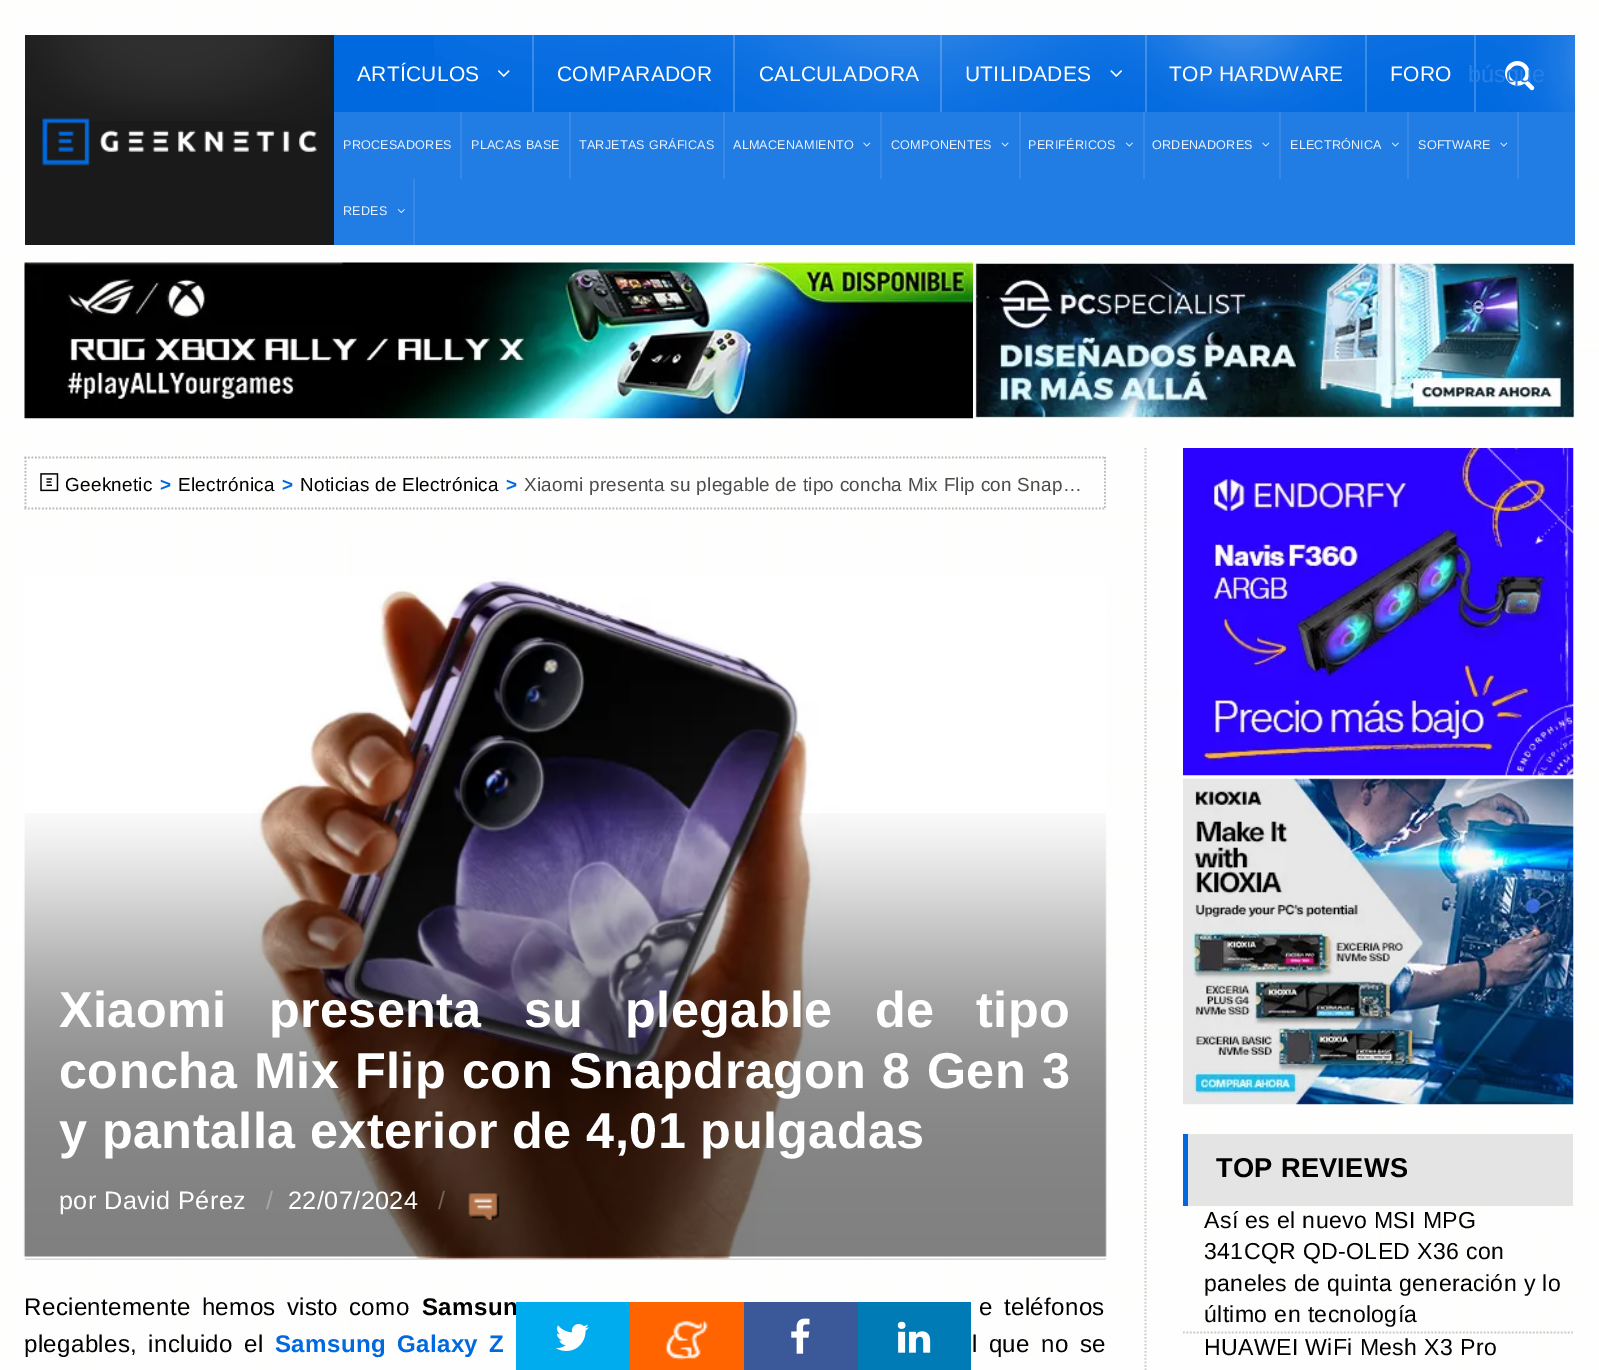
%!PS
<< /PageSize [1599 1370] /PageUsesTransparency true >> setpagedevice
/alpha { dup .setfillconstantalpha .setstrokeconstantalpha } def
/picture { 5 dict begin { /h /w /y /x /name } { exch def } forall
  gsave x y translate w h scale
  w h 8 [w 0 0 h 0 0] name (r) file false 3 colorimage grestore end } def
0 .pushpdf14devicefilter
0 1370 translate 1 -1 scale
4 setmiterlimit
1 setgray
0 0 1599 1370 rectfill
(img1.rgb) 0 0 1599 1370 picture
0.102 setgray
25 35 309 210 rectfill
(img2.rgb) 25 35 309 83 picture
(img3.rgb) 42 118 275 48 picture
0 0.412 0.878 setrgbcolor
334 35 1241 77 rectfill
(img4.rgb) 434 35 1141 77 picture
0.2 alpha
1 setgray
532 35 2 77 rectfill
/LiberationSans-Regular [21 0 0 -21 0 0] selectfont
1 alpha
357 81 moveto 0.25 0 (ARTÍCULOS) ashow
(img5.rgb) 498 70 12 7 picture
0.2 alpha
733 35 2 77 rectfill
1 alpha
557 81 moveto 0.25 0 (COMPARADOR) ashow
0.2 alpha
940 35 2 77 rectfill
1 alpha
759 81 moveto 0.25 0 (CALCULADORA) ashow
0.2 alpha
1145 35 2 77 rectfill
1 alpha
965 81 moveto 0.25 0 (UTILIDADES) ashow
(img6.rgb) 1110 70 12 7 picture
0.2 alpha
1365 35 2 77 rectfill
1 alpha
1169 81 moveto 0.25 0 (TOP HARDWARE) ashow
0.2 alpha
1474 35 2 77 rectfill
1 alpha
1390 81 moveto 0.25 0 (FORO) ashow
(img7.rgb) 1505 61 30 30 picture
/LiberationSans-Regular [23.5 0 0 -23.5 0 0] selectfont
0.153 0.502 0.898 setrgbcolor
1468 82 moveto (búsque) show
0.129 0.486 0.894 setrgbcolor
334 112 1241 133 rectfill
0.216 0.537 0.906 setrgbcolor
460 112 2 67 rectfill
/LiberationSans-Regular [12.6 0 0 -12.6 0 0] selectfont
0.914 0.949 0.988 setrgbcolor
343 149 moveto 0.2 0 (PROCESADORES) ashow
0.216 0.537 0.906 setrgbcolor
569 112 2 67 rectfill
0.914 0.949 0.988 setrgbcolor
471 149 moveto 0.2 0 (PLACAS BASE) ashow
0.216 0.537 0.906 setrgbcolor
723 112 2 67 rectfill
0.914 0.949 0.988 setrgbcolor
579 149 moveto 0.2 0 (TARJETAS GRÁFICAS) ashow
0.216 0.537 0.906 setrgbcolor
880 112 2 67 rectfill
0.914 0.949 0.988 setrgbcolor
733 149 moveto 0.2 0 (ALMACENAMIENTO) ashow
(img8.rgb) 863 142 8 5 picture
0.216 0.537 0.906 setrgbcolor
1019 112 2 67 rectfill
0.914 0.949 0.988 setrgbcolor
891 149 moveto 0.2 0 (COMPONENTES) ashow
(img9.rgb) 1001 142 8 5 picture
0.216 0.537 0.906 setrgbcolor
1143 112 2 67 rectfill
0.914 0.949 0.988 setrgbcolor
1028 149 moveto 0.2 0 (PERIFÉRICOS) ashow
(img10.rgb) 1125 142 8 5 picture
0.216 0.537 0.906 setrgbcolor
1279 112 2 67 rectfill
0.914 0.949 0.988 setrgbcolor
1152 149 moveto 0.2 0 (ORDENADORES) ashow
(img8.rgb) 1262 142 8 5 picture
0.216 0.537 0.906 setrgbcolor
1407 112 2 67 rectfill
0.914 0.949 0.988 setrgbcolor
1290 149 moveto 0.2 0 (ELECTRÓNICA) ashow
(img10.rgb) 1391 142 8 5 picture
0.216 0.537 0.906 setrgbcolor
1517 112 2 67 rectfill
0.914 0.949 0.988 setrgbcolor
1418 149 moveto 0.2 0 (SOFTWARE) ashow
(img8.rgb) 1500 142 8 5 picture
0.216 0.537 0.906 setrgbcolor
413 179 2 66 rectfill
0.914 0.949 0.988 setrgbcolor
343 215 moveto 0.2 0 (REDES) ashow
(img11.rgb) 397 209 8 5 picture
(img12.rgb) 24 262 949 157 picture
(img13.rgb) 974 262 601 157 picture
0.733 setgray
1.8 setlinewidth
[1.75 1.75] 0 setdash
newpath 24.5 457.5 moveto 1106 457.5 lineto stroke
newpath 1105 457 moveto 1105 509 lineto stroke
newpath 24.5 508.5 moveto 1106 508.5 lineto stroke
newpath 25.5 457 moveto 25.5 509 lineto stroke
(img14.rgb) 40 473 19 19 picture
/LiberationSans-Regular [18.9 0 0 -18.9 0 0] selectfont
0 setgray
65 491 moveto 0.28 0 (Geeknetic) ashow
/LiberationSans-Bold [18.9 0 0 -18.9 0 0] selectfont
0 0.412 0.878 setrgbcolor
160 491 moveto 0.28 0 (>) ashow
/LiberationSans-Regular [18.9 0 0 -18.9 0 0] selectfont
0 setgray
178 491 moveto 0.28 0 (Electrónica) ashow
/LiberationSans-Bold [18.9 0 0 -18.9 0 0] selectfont
0 0.412 0.878 setrgbcolor
282 491 moveto 0.28 0 (>) ashow
/LiberationSans-Regular [18.9 0 0 -18.9 0 0] selectfont
0 setgray
300 491 moveto 0.28 0 (Noticias de Electrónica) ashow
/LiberationSans-Bold [18.9 0 0 -18.9 0 0] selectfont
0 0.412 0.878 setrgbcolor
506 491 moveto 0.28 0 (>) ashow
/LiberationSans-Regular [18.9 0 0 -18.9 0 0] selectfont
0.298 setgray
524 491 moveto 0.28 0 (Xiaomi presenta su plegable de tipo concha Mix Flip con Snap…) ashow
0.855 setgray
25 1258 1081 2 rectfill
(img15.rgb) 25 577 1081 682 picture
(img16.rgb) 23 813 1084 444 picture
/LiberationSans-Bold [50.4 0 0 -50.4 0 0] selectfont
1 setgray
59 1027 moveto 27.5 0 32 0.4 0 (Xiaomi presenta su plegable de tipo) awidthshow
59 1088 moveto 1.5 0 32 0.4 0 (concha Mix Flip con Snapdragon 8 Gen 3) awidthshow
59 1148 moveto 0.4 0 (y pantalla exterior de 4,01 pulgadas) ashow
/LiberationSans-Regular [25.25 0 0 -25.25 0 0] selectfont
59 1209 moveto 0.4 0 (por David Pérez) ashow
0.655 setgray
266 1209 moveto 0.4 0 (/) ashow
1 setgray
288 1209 moveto 0.4 0 (22/07/2024) ashow
0.451 0.38 0.341 setrgbcolor
438 1209 moveto 0.4 0 (/) ashow
(img17.rgb) 468 1193 32 27 picture
/LiberationSans-Regular [24.1 0 0 -24.1 0 0] selectfont
0 setgray
24 1315 moveto 4 0 32 0.35 0 (Recientemente hemos visto como) awidthshow
/LiberationSans-Bold [24.1 0 0 -24.1 0 0] selectfont
422 1315 moveto 0.35 0 (Samsun) ashow
/LiberationSans-Regular [24.1 0 0 -24.1 0 0] selectfont
979 1315 moveto 4 0 32 0.35 0 (e teléfonos) awidthshow
24 1352 moveto 4 0 32 0.35 0 (plegables, incluido el) awidthshow
/LiberationSans-Bold [24.1 0 0 -24.1 0 0] selectfont
0 0.412 0.878 setrgbcolor
275 1352 moveto 4 0 32 0.35 0 (Samsung Galaxy Z) awidthshow
/LiberationSans-Regular [24.1 0 0 -24.1 0 0] selectfont
0 setgray
972 1352 moveto 4 0 32 0.35 0 (l que no se) awidthshow
0.8 setgray
newpath 1145.5 448 moveto 1145.5 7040 lineto stroke
(img18.rgb) 1183 448 391 328 picture
(img19.rgb) 1183 778 391 327 picture
0.894 setgray
1188 1134 385 72 rectfill
0 0.412 0.878 setrgbcolor
1183 1134 5 72 rectfill
/LiberationSans-Bold [27.25 0 0 -27.25 0 0] selectfont
0 setgray
1216 1177 moveto 0.25 0 (TOP REVIEWS) ashow
0.8 setgray
newpath 1183 1332.5 moveto 1573 1332.5 lineto stroke
/LiberationSans-Regular [23.1 0 0 -23.1 0 0] selectfont
0 setgray
1204 1228 moveto 0.35 0 (Así es el nuevo MSI MPG) ashow
1204 1259 moveto 0.35 0 (341CQR QD-OLED X36 con) ashow
1204 1291 moveto 0.35 0 (paneles de quinta generación y lo) ashow
1204 1322 moveto 0.35 0 (último en tecnología) ashow
1204 1355 moveto 0.35 0 (HUAWEI WiFi Mesh X3 Pro) ashow
0 0.675 0.929 setrgbcolor
516 1302 114 68 rectfill
(img20.rgb) 556 1324 33 27 picture
1 0.392 0 setrgbcolor
630 1302 114 68 rectfill
(img21.rgb) 665 1320 43 41 picture
0.231 0.349 0.596 setrgbcolor
744 1302 114 68 rectfill
(img22.rgb) 791 1318 19 36 picture
0 0.482 0.714 setrgbcolor
858 1302 113 68 rectfill
(img23.rgb) 897 1321 34 32 picture
.poppdf14devicefilter showpage
